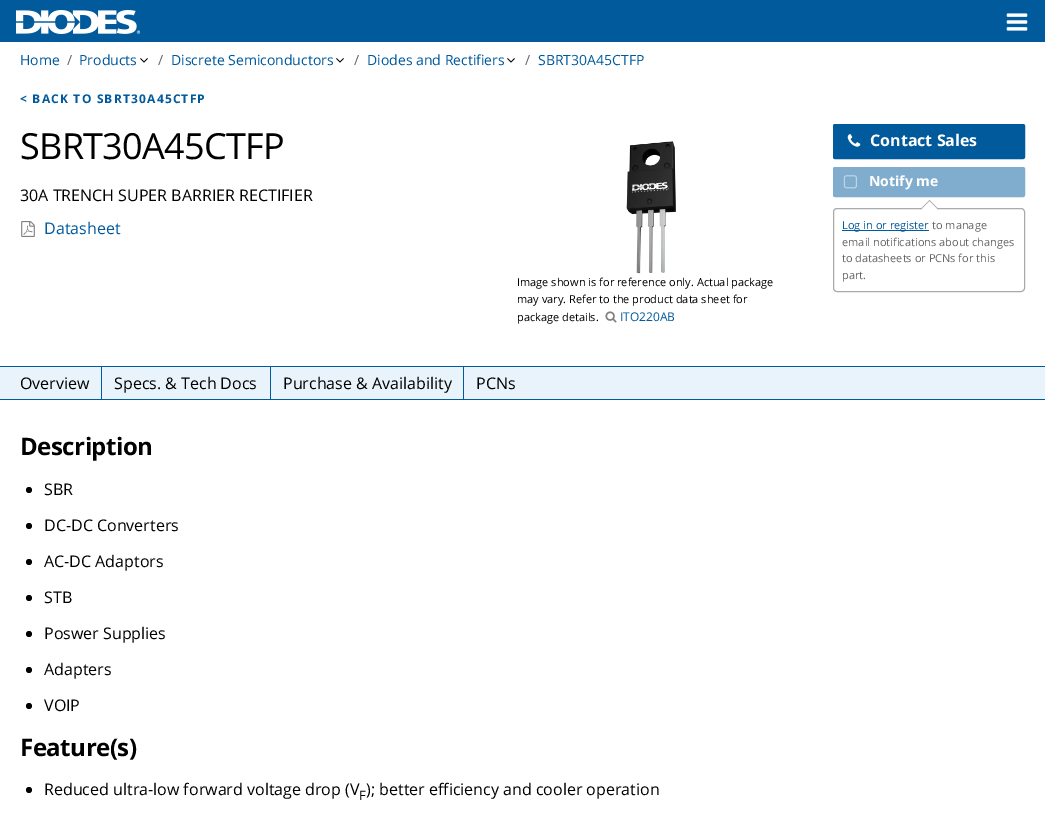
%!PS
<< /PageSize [1045 818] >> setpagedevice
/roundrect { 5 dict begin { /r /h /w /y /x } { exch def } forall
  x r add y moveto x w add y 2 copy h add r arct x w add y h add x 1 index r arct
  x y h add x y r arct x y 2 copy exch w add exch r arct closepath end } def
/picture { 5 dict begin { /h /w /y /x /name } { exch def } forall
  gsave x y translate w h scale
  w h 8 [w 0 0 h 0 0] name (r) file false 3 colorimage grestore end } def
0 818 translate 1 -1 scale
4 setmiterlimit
1 setgray
0 0 1045 818 rectfill
0 0.353 0.612 setrgbcolor
0 0 1045 42 rectfill
(img1.rgb) 16 10 124 24 picture
(img2.rgb) 1006 13 22 18 picture
/OpenSans-Regular [14 0 0 -14 0 0] selectfont
20 65 moveto (Home) show
0.4 setgray
67 65 moveto (/) show
0 0.353 0.612 setrgbcolor
79 65 moveto (Products) show
(img3.rgb) 140 58 8 5 picture
0.4 setgray
158 65 moveto (/) show
0 0.353 0.612 setrgbcolor
171 65 moveto (Discrete Semiconductors) show
(img3.rgb) 336 58 8 5 picture
0.4 setgray
354 65 moveto (/) show
0 0.353 0.612 setrgbcolor
367 65 moveto (Diodes and Rectifiers) show
(img3.rgb) 507 58 8 5 picture
0.4 setgray
525 65 moveto (/) show
0 0.353 0.612 setrgbcolor
538 65 moveto (SBRT30A45CTFP) show
/OpenSans-Bold [12 0 0 -12 0 0] selectfont
20 103 moveto 1.2 0 (< BACK TO SBRT30A45CTFP) ashow
/OpenSans-Regular [36 0 0 -36 0 0] selectfont
0 setgray
20 159 moveto -0.75 0 (SBRT30A45CTFP) ashow
0 0.353 0.612 setrgbcolor
833.5 124.5 191 34 1.5 roundrect gsave fill grestore
stroke
(img4.rgb) 847 134 14 13 picture
/OpenSans-Bold [16 0 0 -16 0 0] selectfont
1 setgray
870 146 moveto (Contact Sales) show
0.502 0.678 0.808 setrgbcolor
833.5 167.5 191 29 1.5 roundrect gsave fill grestore
stroke
(img5.rgb) 843 175 14 14 picture
/OpenSans-Bold [14 0 0 -14 0 0] selectfont
1 setgray
869 186 moveto (Notify me) show
0.667 setgray
833.5 208.5 191 83 3.5 roundrect stroke
1 setgray
newpath 929.5 218 moveto 921 209.5 lineto 929.5 201 lineto 938 209.5 lineto closepath fill
0.667 setgray
newpath 921 209.5 moveto 920.5 209 lineto 929.5 200 lineto 930 200.5 lineto closepath fill
newpath 938 209.5 moveto 929 200.5 lineto 929.5 200 lineto 938.5 209 lineto closepath fill
0 0.353 0.612 setrgbcolor
842 230 87 1 rectfill
/OpenSans-Regular [11 0 0 -11 0 0] selectfont
842 229 moveto (Log in or register) show
0.4 setgray
932 229 moveto (to manage) show
842 246 moveto (email notifications about changes) show
842 262 moveto (to datasheets or PCNs for this) show
842 279 moveto (part.) show
/OpenSans-Regular [16 0 0 -16 0 0] selectfont
0 setgray
20 201 moveto (30A TRENCH SUPER BARRIER RECTIFIER) show
(img6.rgb) 21 221 14 16 picture
0 0.353 0.612 setrgbcolor
44 234 moveto (Datasheet) show
(img7.rgb) 626 141 50 133 picture
/OpenSans-Regular [11 0 0 -11 0 0] selectfont
0 setgray
517 286 moveto (Image shown is for reference only. Actual package) show
517 303 moveto (may vary. Refer to the product data sheet for) show
517 321 moveto (package details.) show
(img8.rgb) 605 311 12 12 picture
/OpenSans-Regular [12 0 0 -12 0 0] selectfont
0 0.353 0.612 setrgbcolor
620 321 moveto (ITO220AB) show
0.91 0.953 0.984 setrgbcolor
0 367 1045 32 rectfill
0 0.353 0.612 setrgbcolor
0 366 1045 1 rectfill
0 399 1045 1 rectfill
101 367 1 32 rectfill
/OpenSans-Regular [16 0 0 -16 0 0] selectfont
0 setgray
20 389 moveto (Overview) show
0 0.353 0.612 setrgbcolor
270 367 1 32 rectfill
0 setgray
114 389 moveto (Specs. & Tech Docs) show
0 0.353 0.612 setrgbcolor
463 367 1 32 rectfill
0 setgray
283 389 moveto (Purchase & Availability) show
476 389 moveto (PCNs) show
/OpenSans-Bold [24 0 0 -24 0 0] selectfont
20 455 moveto -0.5 0 (Description) ashow
newpath 29 490 3 0 360 arc closepath fill
/OpenSans-Regular [16 0 0 -16 0 0] selectfont
44 495 moveto (SBR) show
newpath 29 526 3 0 360 arc closepath fill
44 531 moveto (DC-DC Converters) show
newpath 29 562 3 0 360 arc closepath fill
44 567 moveto (AC-DC Adaptors) show
newpath 29 598 3 0 360 arc closepath fill
44 603 moveto (STB) show
newpath 29 634 3 0 360 arc closepath fill
44 639 moveto (Poswer Supplies) show
newpath 29 670 3 0 360 arc closepath fill
44 675 moveto (Adapters) show
newpath 29 706 3 0 360 arc closepath fill
44 711 moveto (VOIP) show
/OpenSans-Bold [24 0 0 -24 0 0] selectfont
20 756 moveto -0.5 0 (Feature\(s\)) ashow
newpath 29 790 3 0 360 arc closepath fill
/OpenSans-Regular [16 0 0 -16 0 0] selectfont
44 795 moveto (Reduced ultra-low forward voltage drop \(V) show
/OpenSans-Regular [13 0 0 -13 0 0] selectfont
359 800 moveto (F) show
/OpenSans-Regular [16 0 0 -16 0 0] selectfont
366 795 moveto (\); better efficiency and cooler operation) show
showpage
